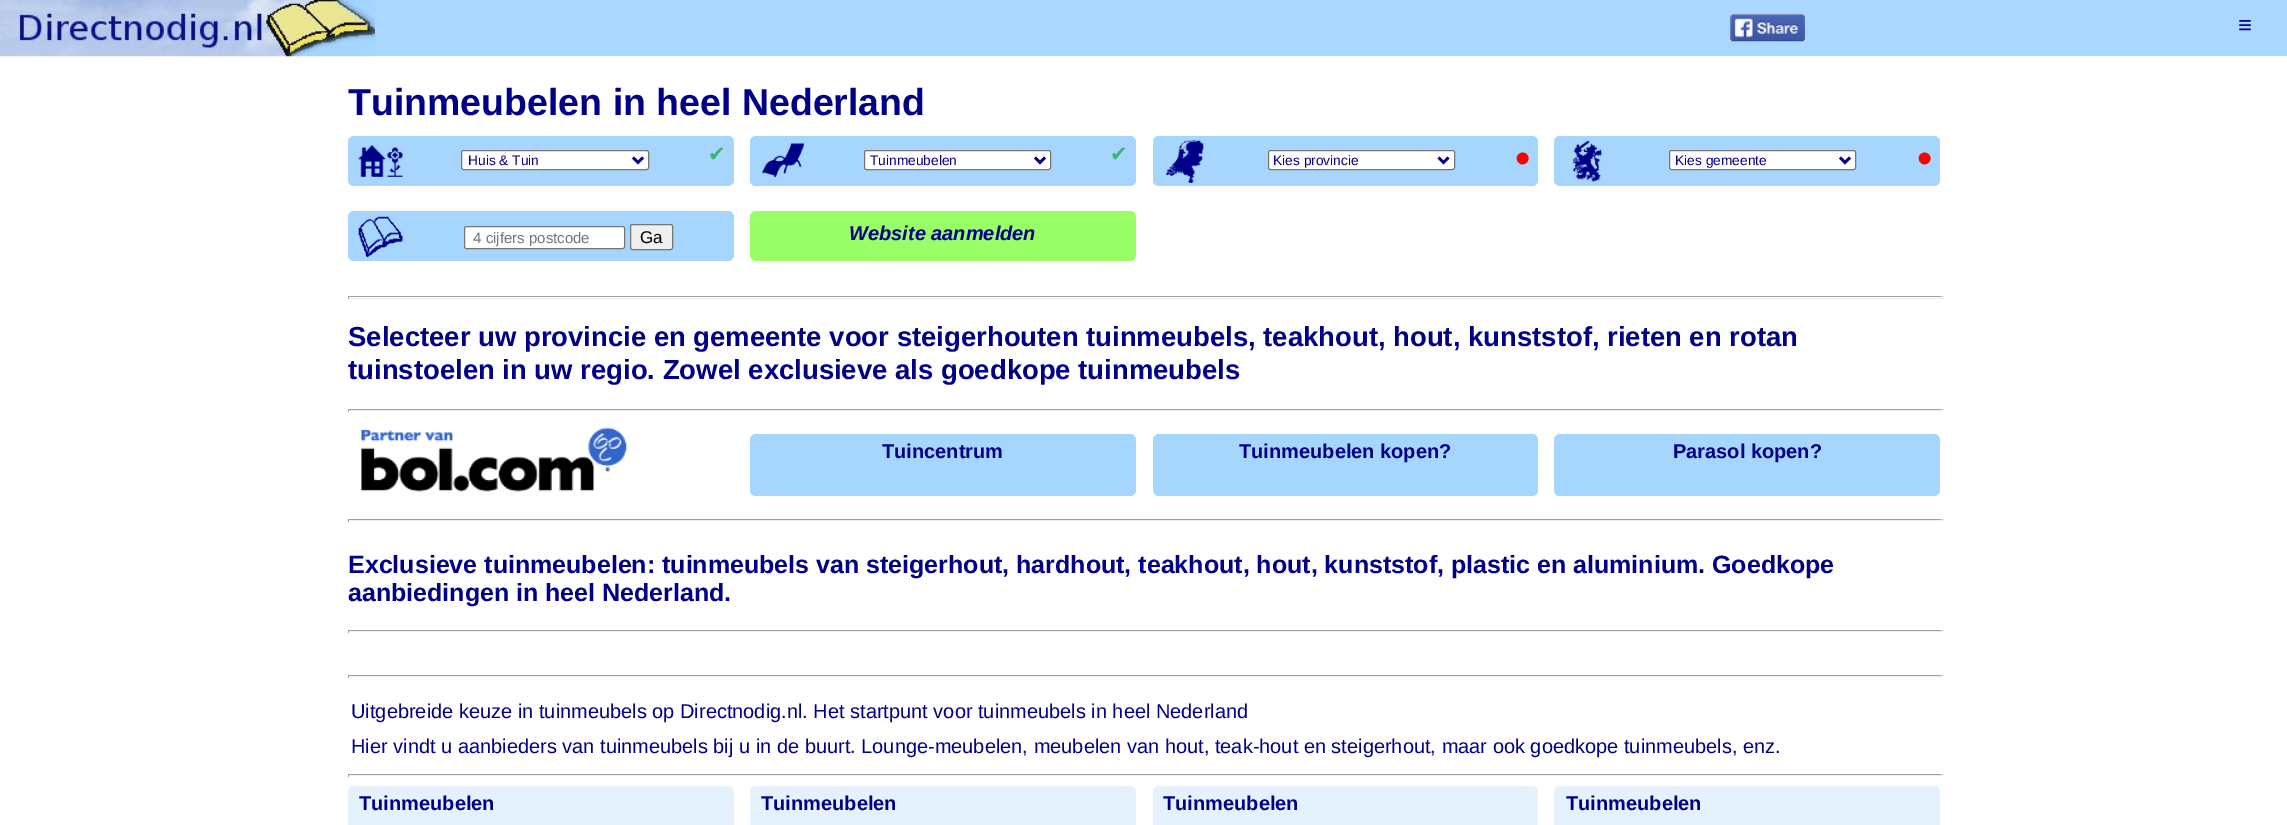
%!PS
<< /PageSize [2287 825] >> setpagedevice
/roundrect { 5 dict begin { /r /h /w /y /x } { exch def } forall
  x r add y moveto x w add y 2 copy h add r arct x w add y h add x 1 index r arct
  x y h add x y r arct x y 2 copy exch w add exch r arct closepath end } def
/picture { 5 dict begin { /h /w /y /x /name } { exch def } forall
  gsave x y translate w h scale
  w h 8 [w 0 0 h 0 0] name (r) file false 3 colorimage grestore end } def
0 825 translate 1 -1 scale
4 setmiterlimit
1 setgray
0 0 2287 825 rectfill
0.667 0.843 0.992 setrgbcolor
0 0 2287 56 rectfill
(img1.rgb) 0 0 375 57 picture
(img2.rgb) 1730 13 75 29 picture
/LiberationSans-Bold [24 0 0 -24 0 0] selectfont
0 0 0.533 setrgbcolor
2238 33 moveto (≡) show
/LiberationSans-Bold [37.5 0 0 -37.5 0 0] selectfont
348 115 moveto (Tuinmeubelen in heel Nederland) show
0.651 0.835 0.992 setrgbcolor
348 136 386 50 6 roundrect fill
(img3.rgb) 358 145 45 32 picture
1 setgray
461.5 150.5 187 19 2 roundrect gsave fill grestore
0.463 setgray
stroke
0 0 0.533 setrgbcolor
2.5 setlinewidth
newpath 633 157.5 moveto 638 162.5 lineto 643 157.5 lineto stroke
/LiberationSans-Regular [13.75 0 0 -13.75 0 0] selectfont
468 165 moveto (Huis & Tuin) show
/DejaVuSans-Regular [21 0 0 -21 0 0] selectfont
0.235 0.702 0.443 setrgbcolor
708 161 moveto (✔) show
0.651 0.835 0.992 setrgbcolor
750 136 386 50 6 roundrect fill
(img4.rgb) 762 142 43 36 picture
1 setgray
864.5 150.5 186 19 2 roundrect gsave fill grestore
0.463 setgray
1 setlinewidth
stroke
0 0 0.533 setrgbcolor
2.5 setlinewidth
newpath 1035 157.5 moveto 1040 162.5 lineto 1045 157.5 lineto stroke
/LiberationSans-Regular [13.75 0 0 -13.75 0 0] selectfont
870 165 moveto (Tuinmeubelen) show
/DejaVuSans-Regular [21 0 0 -21 0 0] selectfont
0.235 0.702 0.443 setrgbcolor
1110 161 moveto (✔) show
0.651 0.835 0.992 setrgbcolor
1153 136 385 50 6 roundrect fill
(img5.rgb) 1166 140 38 43 picture
1 setgray
1268.5 150.5 186 19 2 roundrect gsave fill grestore
0.463 setgray
1 setlinewidth
stroke
0 0 0.533 setrgbcolor
2.5 setlinewidth
newpath 1438.5 157.5 moveto 1443.5 162.5 lineto 1448.5 157.5 lineto stroke
/LiberationSans-Regular [13.75 0 0 -13.75 0 0] selectfont
1273 165 moveto (Kies provincie) show
/LiberationSans-Regular [44 0 0 -44 0 0] selectfont
1 0 0 setrgbcolor
1515 173 moveto (•) show
0.651 0.835 0.992 setrgbcolor
1554 136 386 50 6 roundrect fill
(img6.rgb) 1572 140 30 42 picture
1 setgray
1669.5 150.5 186 19 2 roundrect gsave fill grestore
0.463 setgray
1 setlinewidth
stroke
0 0 0.533 setrgbcolor
2.5 setlinewidth
newpath 1840 157.5 moveto 1845 162.5 lineto 1850 157.5 lineto stroke
/LiberationSans-Regular [13.75 0 0 -13.75 0 0] selectfont
1675 165 moveto (Kies gemeente) show
/LiberationSans-Regular [44 0 0 -44 0 0] selectfont
1 0 0 setrgbcolor
1917 173 moveto (•) show
0.651 0.835 0.992 setrgbcolor
348 211 386 50 6 roundrect fill
(img7.rgb) 358 216 45 41 picture
1 setgray
464.5 226.5 160 22 2 roundrect gsave fill grestore
0.463 setgray
1 setlinewidth
stroke
/LiberationSans-Regular [15 0 0 -15 0 0] selectfont
0.459 setgray
473 243 moveto (4 cijfers postcode) show
0.937 setgray
630.5 224.5 42 25 2 roundrect gsave fill grestore
0.463 setgray
stroke
/LiberationSans-Regular [17 0 0 -17 0 0] selectfont
0 setgray
640 243 moveto (Ga) show
0.6 1 0.4 setrgbcolor
750 211 386 50 6 roundrect fill
/LiberationSans-BoldItalic [20 0 0 -20 0 0] selectfont
0 0 0.533 setrgbcolor
849 240 moveto (Website aanmelden) show
0.624 setgray
348 296 1595 1 rectfill
0.933 setgray
1941 296 1 3 rectfill
348 298 1595 1 rectfill
0.624 setgray
348 296 1 3 rectfill
/LiberationSans-Bold [27.5 0 0 -27.5 0 0] selectfont
0 0 0.533 setrgbcolor
348 346 moveto (Selecteer uw provincie en gemeente voor steigerhouten tuinmeubels, teakhout, hout, kunststof, rieten en rotan) show
348 379 moveto (tuinstoelen in uw regio. Zowel exclusieve als goedkope tuinmeubels) show
0.624 setgray
348 409 1595 1 rectfill
0.933 setgray
1941 409 1 3 rectfill
348 410 1595 1 rectfill
0.624 setgray
348 409 1 3 rectfill
(img8.rgb) 361 427 266 65 picture
0.651 0.835 0.992 setrgbcolor
750 434 386 62 6 roundrect fill
/LiberationSans-Bold [20 0 0 -20 0 0] selectfont
0 0 0.533 setrgbcolor
882 458 moveto (Tuincentrum) show
0.651 0.835 0.992 setrgbcolor
1153 434 385 62 6 roundrect fill
0 0 0.533 setrgbcolor
1239 458 moveto (Tuinmeubelen kopen?) show
0.651 0.835 0.992 setrgbcolor
1554 434 386 62 6 roundrect fill
0 0 0.533 setrgbcolor
1673 458 moveto (Parasol kopen?) show
0.624 setgray
348 519 1595 1 rectfill
0.933 setgray
1941 519 1 3 rectfill
348 520 1595 1 rectfill
0.624 setgray
348 519 1 3 rectfill
/LiberationSans-Bold [25 0 0 -25 0 0] selectfont
0 0 0.533 setrgbcolor
348 573 moveto (Exclusieve tuinmeubelen: tuinmeubels van steigerhout, hardhout, teakhout, hout, kunststof, plastic en aluminium. Goedkope) show
348 601 moveto (aanbiedingen in heel Nederland.) show
0.624 setgray
348 630 1595 1 rectfill
0.933 setgray
1941 630 1 3 rectfill
348 631 1595 1 rectfill
0.624 setgray
348 630 1 3 rectfill
348 675 1595 1 rectfill
0.933 setgray
1941 675 1 3 rectfill
348 676 1595 1 rectfill
0.624 setgray
348 675 1 3 rectfill
/LiberationSans-Regular [20 0 0 -20 0 0] selectfont
0 0 0.533 setrgbcolor
351 718 moveto (Uitgebreide keuze in tuinmeubels op Directnodig.nl. Het startpunt voor tuinmeubels in heel Nederland) show
351 753 moveto (Hier vindt u aanbieders van tuinmeubels bij u in de buurt. Lounge-meubelen, meubelen van hout, teak-hout en steigerhout, maar ook goedkope tuinmeubels, enz.) show
0.624 setgray
348 774 1595 1 rectfill
0.933 setgray
1941 774 1 3 rectfill
348 775 1595 1 rectfill
0.624 setgray
348 774 1 3 rectfill
0.898 0.949 0.992 setrgbcolor
348 786 386 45 6 roundrect fill
/LiberationSans-Bold [20 0 0 -20 0 0] selectfont
0 0 0.533 setrgbcolor
359 810 moveto (Tuinmeubelen) show
0.898 0.949 0.992 setrgbcolor
750 786 386 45 6 roundrect fill
0 0 0.533 setrgbcolor
761 810 moveto (Tuinmeubelen) show
0.898 0.949 0.992 setrgbcolor
1153 786 385 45 6 roundrect fill
0 0 0.533 setrgbcolor
1163 810 moveto (Tuinmeubelen) show
0.898 0.949 0.992 setrgbcolor
1554 786 386 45 6 roundrect fill
0 0 0.533 setrgbcolor
1566 810 moveto (Tuinmeubelen) show
showpage
